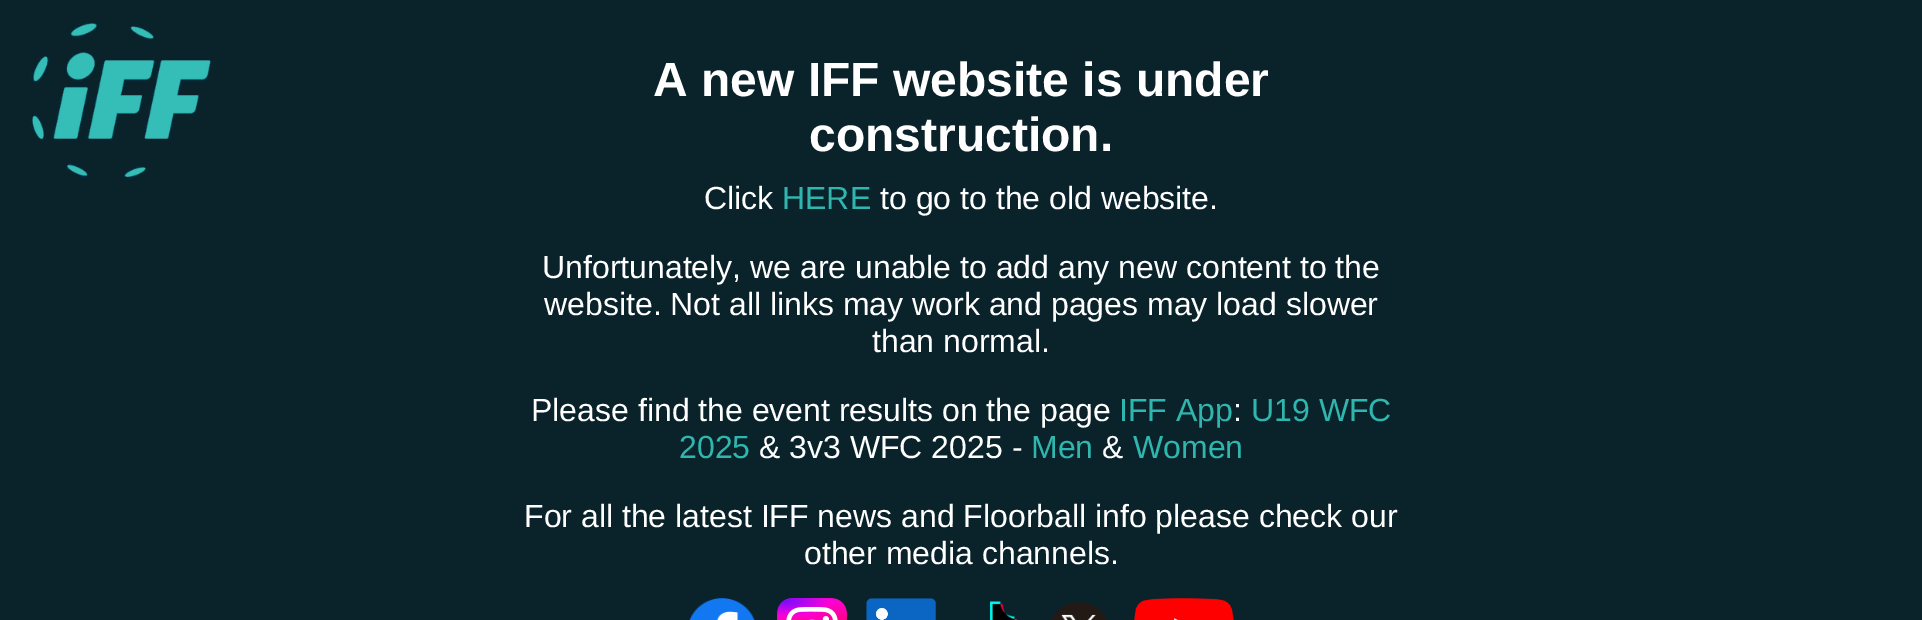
%!PS
<< /PageSize [1922 620] >> setpagedevice
/picture { 5 dict begin { /h /w /y /x /name } { exch def } forall
  gsave x y translate w h scale
  w h 8 [w 0 0 h 0 0] name (r) file false 3 colorimage grestore end } def
0 620 translate 1 -1 scale
4 setmiterlimit
0.039 0.137 0.169 setrgbcolor
0 0 1922 620 rectfill
(img1.rgb) 30 21 182 158 picture
/LiberationSans-Bold [48 0 0 -48 0 0] selectfont
1 setgray
653 96 moveto (A new IFF website is under) show
809 151 moveto (construction.) show
/LiberationSans-Regular [32 0 0 -32 0 0] selectfont
704 209 moveto (Click) show
0.184 0.714 0.682 setrgbcolor
782 209 moveto (HERE) show
1 setgray
880 209 moveto (to go to the old website.) show
542 278 moveto (Unfortunately, we are unable to add any new content to the) show
544 315 moveto (website. Not all links may work and pages may load slower) show
872 352 moveto (than normal.) show
531 421 moveto (Please find the event results on the page) show
0.184 0.714 0.682 setrgbcolor
1119 421 moveto (IFF App) show
1 setgray
1233 421 moveto (:) show
0.184 0.714 0.682 setrgbcolor
1251 421 moveto (U19 WFC) show
679 458 moveto (2025) show
1 setgray
759 458 moveto (& 3v3 WFC 2025 -) show
0.184 0.714 0.682 setrgbcolor
1031 458 moveto (Men) show
1 setgray
1102 458 moveto (&) show
0.184 0.714 0.682 setrgbcolor
1133 458 moveto (Women) show
1 setgray
524 527 moveto (For all the latest IFF news and Floorball info please check our) show
804 564 moveto (other media channels.) show
(img2.rgb) 689 598 66 22 picture
(img3.rgb) 777 598 70 22 picture
(img4.rgb) 866 598 70 22 picture
(img5.rgb) 990 601 28 19 picture
(img6.rgb) 1051 602 56 18 picture
(img7.rgb) 1134 598 100 22 picture
showpage
